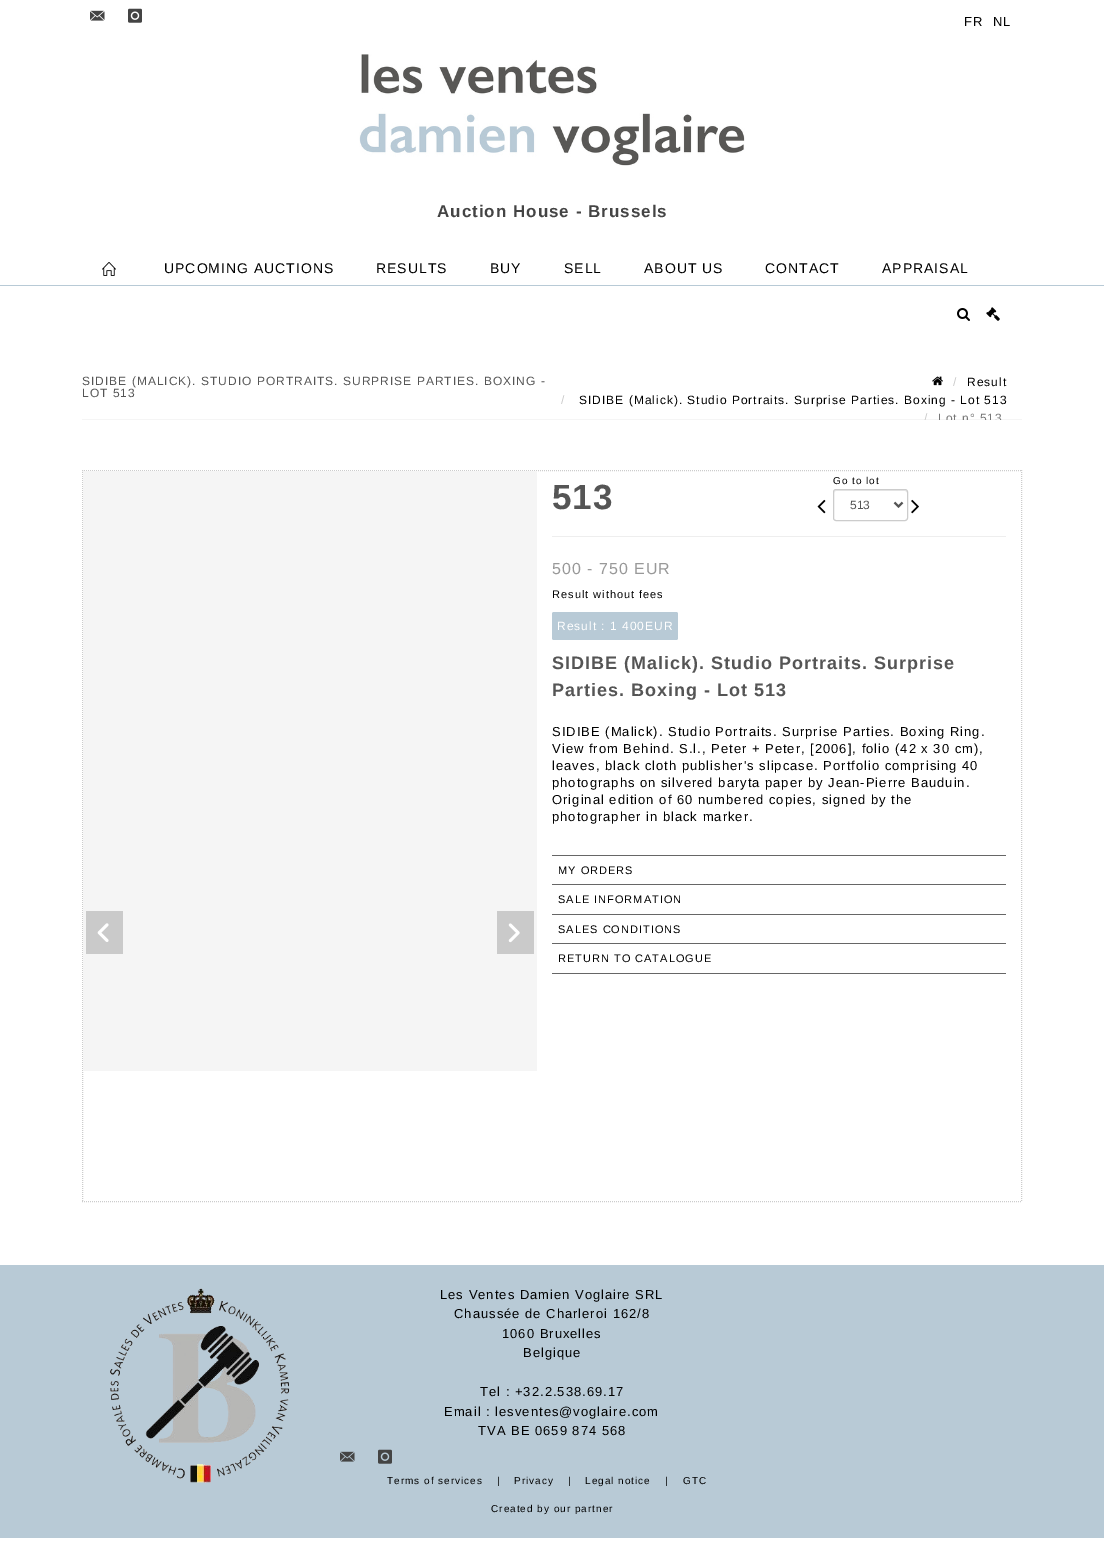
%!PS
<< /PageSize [1104 1542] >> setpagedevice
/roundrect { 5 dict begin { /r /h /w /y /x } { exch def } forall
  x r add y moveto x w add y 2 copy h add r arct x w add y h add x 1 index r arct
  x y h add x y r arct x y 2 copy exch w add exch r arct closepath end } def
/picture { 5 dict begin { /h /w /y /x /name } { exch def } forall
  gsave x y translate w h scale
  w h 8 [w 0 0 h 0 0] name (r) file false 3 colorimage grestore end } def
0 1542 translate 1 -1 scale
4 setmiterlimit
1 setgray
0 0 1104 1542 rectfill
0.722 0.792 0.839 setrgbcolor
0 285 1104 1 rectfill
(img1.rgb) 90 10 15 11 picture
(img2.rgb) 128 8 14 15 picture
/LiberationSans-Regular [13 0 0 -13 0 0] selectfont
0 setgray
964 26 moveto 1 0 (FR) ashow
993 26 moveto 1 0 (NL) ashow
(img3.rgb) 359 54 386 112 picture
/LiberationSans-Bold [17 0 0 -17 0 0] selectfont
0.267 setgray
437 217 moveto 1 0 (Auction House - Brussels) ashow
(img4.rgb) 102 262 14 14 picture
/LiberationSans-Regular [14 0 0 -14 0 0] selectfont
0 setgray
164 273 moveto 1 0 (UPCOMING AUCTIONS) ashow
376 273 moveto 1 0 (RESULTS) ashow
490 273 moveto 1 0 (BUY) ashow
564 273 moveto 1 0 (SELL) ashow
644 273 moveto 1 0 (ABOUT US) ashow
765 273 moveto 1 0 (CONTACT) ashow
882 273 moveto 1 0 (APPRAISAL) ashow
(img5.rgb) 957 308 13 13 picture
(img6.rgb) 986 307 14 14 picture
0.961 setgray
82 419 940 1 rectfill
/LiberationSans-Regular [12 0 0 -12 0 0] selectfont
0.333 setgray
82 385 moveto 1 0 (SIDIBE \(MALICK\). STUDIO PORTRAITS. SURPRISE PARTIES. BOXING -) ashow
82 397 moveto 1 0 (LOT 513) ashow
(img7.rgb) 932 376 11 10 picture
0.8 setgray
953 386 moveto 1 0 (/) ashow
0 setgray
967 386 moveto 1 0 (Result) ashow
0.8 setgray
561 404 moveto 1 0 (/) ashow
0 setgray
579 404 moveto 1 0 (SIDIBE \(Malick\). Studio Portraits. Surprise Parties. Boxing - Lot 513) ashow
0.8 setgray
924 422 moveto 1 0 (/) ashow
0.467 setgray
938 422 moveto 1 0 (Lot n° 513) ashow
1 setgray
924 420 77 3 rectfill
0.8 setgray
[1 1] 0 setdash
newpath 82 470.5 moveto 1022 470.5 lineto stroke
newpath 1021.5 470 moveto 1021.5 1202 lineto stroke
newpath 82 1201.5 moveto 1022 1201.5 lineto stroke
newpath 82.5 470 moveto 82.5 1202 lineto stroke
0.961 setgray
83 471 454 600 rectfill
0.792 setgray
86 911 37 43 rectfill
(img8.rgb) 97 923 12 19 picture
497 911 37 43 rectfill
(img9.rgb) 508 923 12 20 picture
/LiberationSans-Bold [35 0 0 -35 0 0] selectfont
0.333 setgray
552 509 moveto 1 0 (513) ashow
(img10.rgb) 817 499 9 15 picture
/LiberationSans-Regular [10 0 0 -10 0 0] selectfont
0 setgray
833 484 moveto 1 0 (Go to lot) ashow
0.925 setgray
newpath 836 491 moveto 905 491 lineto 906 491 907 492 907 493 curveto 907 487 897 490 894 490 curveto 848 490 lineto 844 490 834 487 834 493 curveto 834 492 835 491 836 491 curveto closepath fill
0.8 setgray
[] 0 setdash
833.5 489.5 74 31 2.5 roundrect stroke
0.333 setgray
2 setlinewidth
newpath 894.5 502.5 moveto 898.5 506.5 lineto 902.5 502.5 lineto stroke
/LiberationSans-Regular [12 0 0 -12 0 0] selectfont
850 509 moveto (513) show
(img11.rgb) 911 499 8 15 picture
0.933 setgray
552 536 454 1 rectfill
/LiberationSans-Regular [16 0 0 -16 0 0] selectfont
0.6 setgray
552 574 moveto 1 0 (500 - 750 EUR) ashow
/LiberationSans-Regular [11 0 0 -11 0 0] selectfont
0 setgray
552 598 moveto 1 0 (Result without fees) ashow
0.722 0.792 0.839 setrgbcolor
552 612 126 28 2 roundrect fill
/LiberationSans-Regular [12 0 0 -12 0 0] selectfont
1 setgray
557 630 moveto 1 0 (Result : 1 400EUR) ashow
/LiberationSans-Bold [18 0 0 -18 0 0] selectfont
0.333 setgray
552 669 moveto 1 0 (SIDIBE \(Malick\). Studio Portraits. Surprise) ashow
552 696 moveto 1 0 (Parties. Boxing - Lot 513) ashow
/LiberationSans-Regular [13 0 0 -13 0 0] selectfont
0 setgray
552 736 moveto 1 0 (SIDIBE \(Malick\). Studio Portraits. Surprise Parties. Boxing Ring.) ashow
552 753 moveto 1 0 (View from Behind. S.l., Peter + Peter, [2006], folio \(42 x 30 cm\),) ashow
552 770 moveto 1 0 (leaves, black cloth publisher's slipcase. Portfolio comprising 40) ashow
552 787 moveto 1 0 (photographs on silvered baryta paper by Jean-Pierre Bauduin.) ashow
552 804 moveto 1 0 (Original edition of 60 numbered copies, signed by the) ashow
552 821 moveto 1 0 (photographer in black marker.) ashow
0.4 setgray
552 855 454 1 rectfill
552 884 454 1 rectfill
/LiberationSans-Regular [11 0 0 -11 0 0] selectfont
0 setgray
558 874 moveto 1 0 (MY ORDERS) ashow
0.4 setgray
552 914 454 1 rectfill
0 setgray
558 903 moveto 1 0 (SALE INFORMATION) ashow
0.4 setgray
552 943 454 1 rectfill
0 setgray
558 933 moveto 1 0 (SALES CONDITIONS) ashow
0.4 setgray
552 973 454 1 rectfill
0 setgray
558 962 moveto 1 0 (RETURN TO CATALOGUE) ashow
0.722 0.792 0.839 setrgbcolor
0 1265 1104 273 rectfill
(img12.rgb) 110 1288 180 195 picture
/LiberationSans-Regular [13 0 0 -13 0 0] selectfont
0 setgray
440 1299 moveto 1 0 (Les Ventes Damien Voglaire SRL) ashow
454 1318 moveto 1 0 (Chaussée de Charleroi 162/8) ashow
502 1338 moveto 1 0 (1060 Bruxelles) ashow
523 1357 moveto 1 0 (Belgique) ashow
480 1396 moveto 1 0 (Tel : +32.2.538.69.17) ashow
444 1416 moveto 1 0 (Email : lesventes@voglaire.com) ashow
478 1435 moveto 1 0 (TVA BE 0659 874 568) ashow
(img13.rgb) 340 1451 15 11 picture
(img14.rgb) 378 1449 14 15 picture
/LiberationSans-Regular [10 0 0 -10 0 0] selectfont
387 1484 moveto 1 0 (Terms of services) ashow
497 1484 moveto 1 0 (|) ashow
514 1484 moveto 1 0 (Privacy) ashow
568 1484 moveto 1 0 (|) ashow
585 1484 moveto 1 0 (Legal notice) ashow
665 1484 moveto 1 0 (|) ashow
683 1484 moveto 1 0 (GTC) ashow
491 1512 moveto 1 0 (Created by our partner) ashow
showpage
